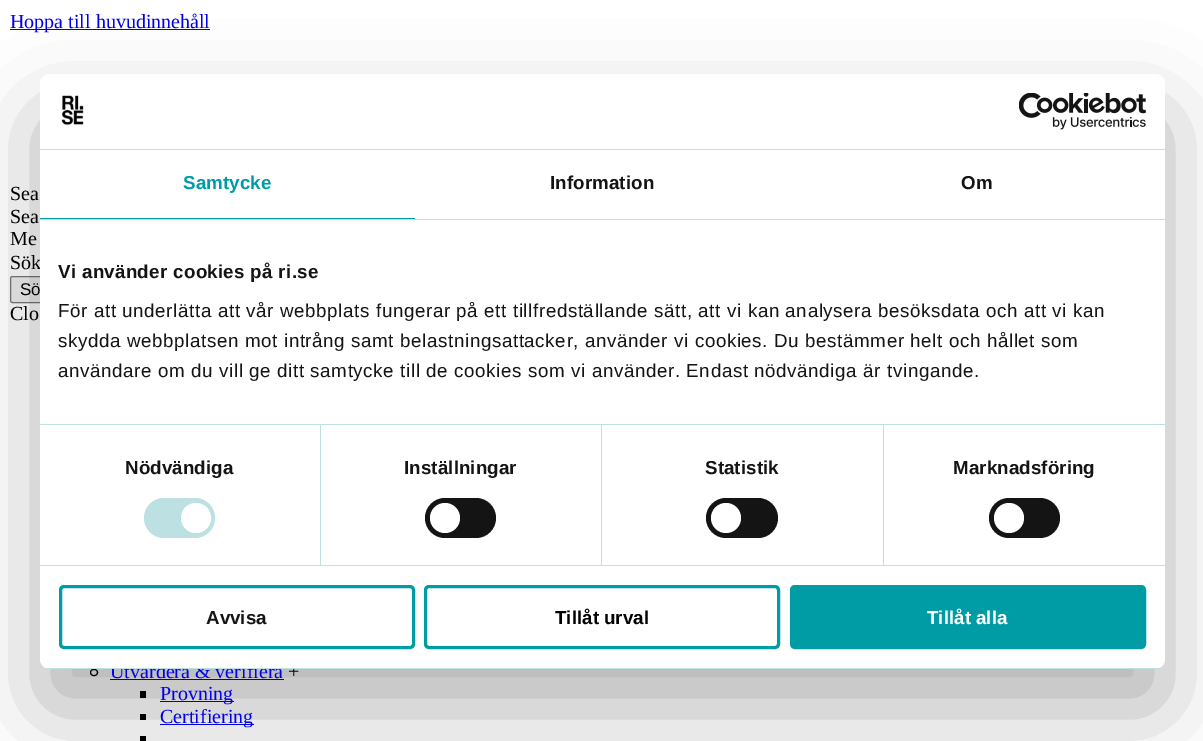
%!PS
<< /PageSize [1203 741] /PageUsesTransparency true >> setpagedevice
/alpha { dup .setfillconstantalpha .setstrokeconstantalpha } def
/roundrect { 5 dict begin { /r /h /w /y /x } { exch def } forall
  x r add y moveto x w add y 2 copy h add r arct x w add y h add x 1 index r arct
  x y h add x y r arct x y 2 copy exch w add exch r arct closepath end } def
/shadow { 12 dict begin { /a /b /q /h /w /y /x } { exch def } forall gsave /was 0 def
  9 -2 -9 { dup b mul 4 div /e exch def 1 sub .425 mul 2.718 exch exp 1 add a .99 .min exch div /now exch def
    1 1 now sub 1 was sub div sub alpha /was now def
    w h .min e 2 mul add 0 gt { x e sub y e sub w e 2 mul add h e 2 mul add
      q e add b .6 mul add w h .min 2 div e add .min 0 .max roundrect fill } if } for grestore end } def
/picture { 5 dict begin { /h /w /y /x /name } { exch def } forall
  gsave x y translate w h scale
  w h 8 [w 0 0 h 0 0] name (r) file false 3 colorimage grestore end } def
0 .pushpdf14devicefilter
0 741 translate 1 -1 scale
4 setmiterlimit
1 setgray
0 0 1203 741 rectfill
0 0 0.933 setrgbcolor
10 29 200 1 rectfill
/LiberationSerif-Regular [20 0 0 -20 0 0] selectfont
10 28 moveto (Hoppa till huvudinnehåll) show
0.937 setgray
10.5 276.5 48 26 2 roundrect gsave fill grestore
0.463 setgray
stroke
0 setgray
90.5 669.5 7 6 3 roundrect stroke
0 0 0.933 setrgbcolor
110 679 174 1 rectfill
0 setgray
140 691 6 7 rectfill
0 0 0.933 setrgbcolor
160 701 74 1 rectfill
0 setgray
140 714 6 6 rectfill
0 0 0.933 setrgbcolor
160 724 94 1 rectfill
0 setgray
140 736 6 5 rectfill
40 114 1125 595 10 42.5 0.3 shadow
10 269 moveto (Sök) show
0 0 0.933 setrgbcolor
110 678 moveto (Utvärdera & verifiera) show
0 setgray
288 678 moveto (+) show
1 setgray
40 74 1125 595 10 roundrect fill
0.741 0.878 0.886 setrgbcolor
40 149 1125 1 rectfill
(img1.rgb) 61 95 23 30 picture
(img2.rgb) 1019 93 127 37 picture
40 219 1125 1 rectfill
0 0.612 0.651 setrgbcolor
40 218 375 1 rectfill
/LiberationSans-Bold [18.75 0 0 -18.75 0 0] selectfont
183 189 moveto 0.1 0 (Samtycke) ashow
0.078 setgray
550 189 moveto 0.1 0 (Information) ashow
961 189 moveto 0.1 0 (Om) ashow
0.741 0.878 0.886 setrgbcolor
40 424 1125 1 rectfill
0.078 setgray
58 278 moveto 0.3 0 (Vi använder cookies på ri.se) ashow
/LiberationSans-Regular [18.75 0 0 -18.75 0 0] selectfont
58 317 moveto 0.62 0 (För att underlätta att vår webbplats fungerar på ett tillfredställande sätt, att vi kan analysera besöksdata och att vi kan) ashow
58 347 moveto 0.62 0 (skydda webbplatsen mot intrång samt belastningsattacker, använder vi cookies. Du bestämmer helt och hållet som) ashow
58 377 moveto 0.62 0 (användare om du vill ge ditt samtycke till de cookies som vi använder. Endast nödvändiga är tvingande.) ashow
0.741 0.878 0.886 setrgbcolor
40 565 1125 1 rectfill
320 425 1 140 rectfill
/LiberationSans-Bold [18.75 0 0 -18.75 0 0] selectfont
0.078 setgray
125 474 moveto 0.1 0 (Nödvändiga) ashow
0.741 0.878 0.886 setrgbcolor
144 498 71 40 20 roundrect fill
1 setgray
newpath 196 518 15 0 360 arc closepath fill
0.741 0.878 0.886 setrgbcolor
601 425 1 140 rectfill
0.078 setgray
404 474 moveto 0.1 0 (Inställningar) ashow
425 498 71 40 20 roundrect fill
1 setgray
newpath 445 518 15 0 360 arc closepath fill
0.741 0.878 0.886 setrgbcolor
883 425 1 140 rectfill
0.078 setgray
705 474 moveto 0.1 0 (Statistik) ashow
706 498 72 40 20 roundrect fill
1 setgray
newpath 726 518 15 0 360 arc closepath fill
0.078 setgray
953 474 moveto 0.1 0 (Marknadsföring) ashow
989 498 71 40 20 roundrect fill
1 setgray
newpath 1009 518 15 0 360 arc closepath fill
gsave
40 74 1125 595 10 roundrect clip newpath
0.741 0.878 0.886 setrgbcolor
40 668 1125 1 rectfill
grestore
0 0.612 0.651 setrgbcolor
3 setlinewidth
60.5 586.5 353 61 3.5 roundrect stroke
0.078 setgray
206 624 moveto (Avvisa) show
0 0.612 0.651 setrgbcolor
425.5 586.5 353 61 3.5 roundrect stroke
0 setgray
555 624 moveto (Tillåt urval) show
0 0.612 0.651 setrgbcolor
791.5 586.5 353 61 3.5 roundrect gsave fill grestore
stroke
1 setgray
927 624 moveto (Tillåt alla) show
/LiberationSerif-Regular [20 0 0 -20 0 0] selectfont
0 setgray
10 200 moveto (Sea) show
10 223 moveto (Sea) show
10 245 moveto (Me) show
/LiberationSans-Regular [17 0 0 -17 0 0] selectfont
20 295 moveto (Sö) show
/LiberationSerif-Regular [20 0 0 -20 0 0] selectfont
10 320 moveto (Clo) show
0 0 0.933 setrgbcolor
160 700 moveto (Provning) show
160 723 moveto (Certifiering) show
.poppdf14devicefilter showpage
